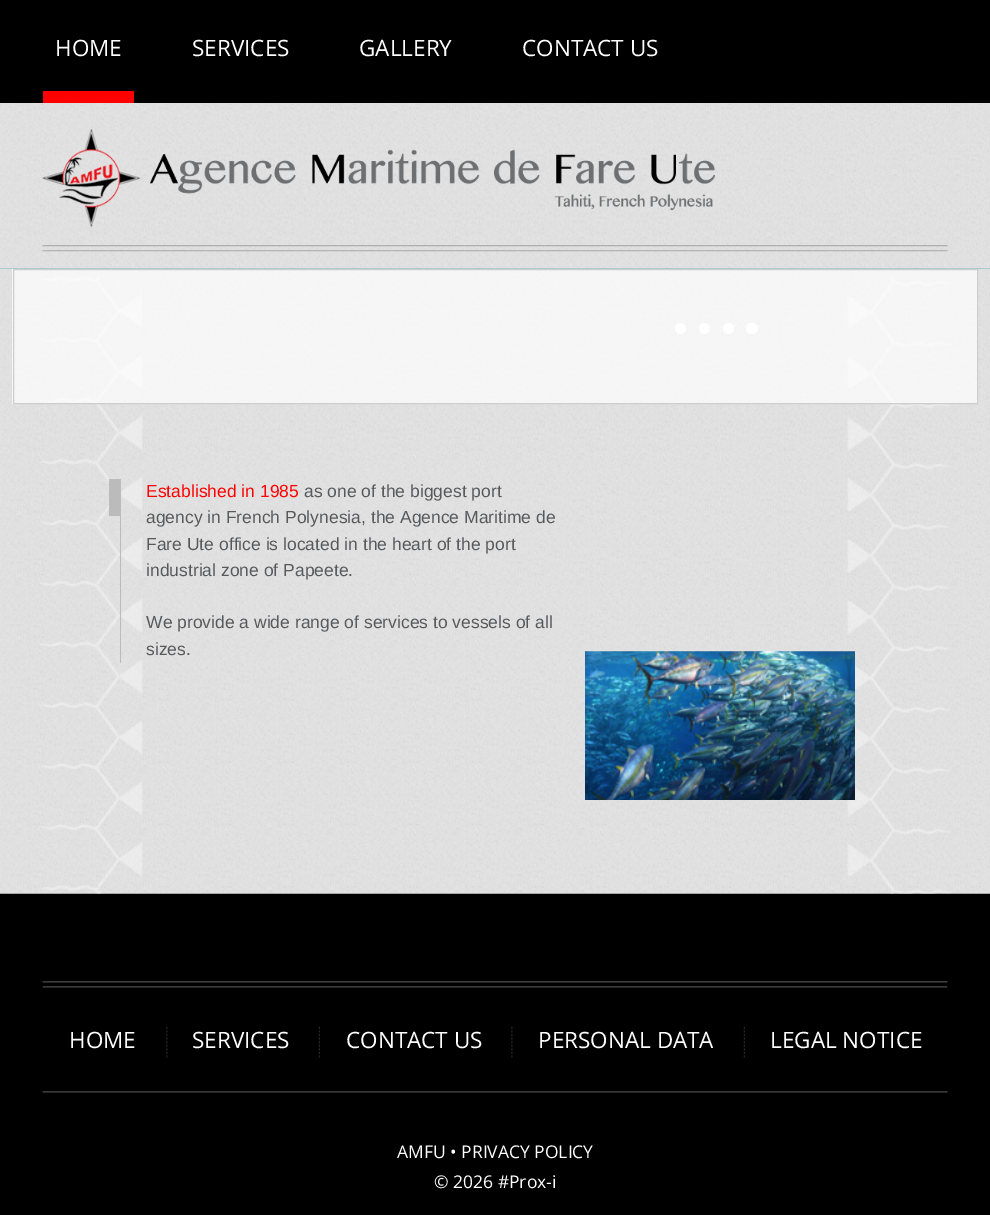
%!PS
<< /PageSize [990 1215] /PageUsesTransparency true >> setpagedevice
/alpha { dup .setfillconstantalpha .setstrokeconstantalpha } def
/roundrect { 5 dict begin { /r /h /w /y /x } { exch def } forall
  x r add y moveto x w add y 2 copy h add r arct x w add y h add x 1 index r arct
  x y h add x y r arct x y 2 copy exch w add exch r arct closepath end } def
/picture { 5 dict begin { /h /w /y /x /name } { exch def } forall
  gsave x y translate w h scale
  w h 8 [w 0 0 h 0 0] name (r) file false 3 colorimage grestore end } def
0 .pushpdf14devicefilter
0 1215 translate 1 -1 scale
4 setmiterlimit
0 setgray
0 0 990 1215 rectfill
(img4.rgb) 0 268 990 626 picture
(img5.rgb) 39 276 104 618 picture
(img7.rgb) 847 277 104 617 picture
0.7 alpha
1 setgray
12 268 966 136 rectfill
1 alpha
(img1.rgb) 0 103 990 166 picture
1 0 0 setrgbcolor
43 91 91 12 rectfill
/OpenSans-Regular [22.5 0 0 -22.5 0 0] selectfont
1 setgray
55 56 moveto (HOME) show
192 56 moveto (SERVICES) show
359 56 moveto (GALLERY) show
522 56 moveto (CONTACT US) show
(img2.rgb) 42 129 673 99 picture
(img3.rgb) 42 245 906 7 picture
0.812 0.808 0.808 setrgbcolor
13.5 269.5 964 134 rectstroke
1 setgray
newpath 680.5 328.5 5.5 0 360 arc closepath fill
newpath 704.5 328.5 5.5 0 360 arc closepath fill
newpath 728.5 328.5 5.5 0 360 arc closepath fill
746 323 12 11 5.5 roundrect fill
0.733 setgray
120 516 1 147 rectfill
109 479 12 37 rectfill
/LiberationSans-Regular [17.5 0 0 -17.5 0 0] selectfont
1 0 0 setrgbcolor
146 497 moveto (Established in 1985) show
0.345 0.349 0.357 setrgbcolor
304 497 moveto (as one of the biggest port) show
146 523 moveto (agency in French Polynesia, the Agence Maritime de) show
146 550 moveto (Fare Ute office is located in the heart of the port) show
146 576 moveto (industrial zone of Papeete.) show
146 628 moveto (We provide a wide range of services to vessels of all) show
146 655 moveto (sizes.) show
(img6.rgb) 585 651 270 149 picture
(img8.rgb) 42 981 906 2 picture
(img9.rgb) 42 986 906 2 picture
/OpenSans-Regular [22.5 0 0 -22.5 0 0] selectfont
1 setgray
69 1048 moveto (HOME) show
(img10.rgb) 166 1026 2 32 picture
192 1048 moveto (SERVICES) show
(img11.rgb) 318 1026 2 32 picture
346 1048 moveto (CONTACT US) show
(img10.rgb) 511 1026 2 32 picture
538 1048 moveto (PERSONAL DATA) show
(img11.rgb) 743 1026 2 32 picture
770 1048 moveto (LEGAL NOTICE) show
(img8.rgb) 42 1091 906 2 picture
/OpenSans-Regular [17.5 0 0 -17.5 0 0] selectfont
397 1158 moveto (AMFU • PRIVACY POLICY) show
434 1188 moveto (© 2026 #Prox-i) show
.poppdf14devicefilter showpage
